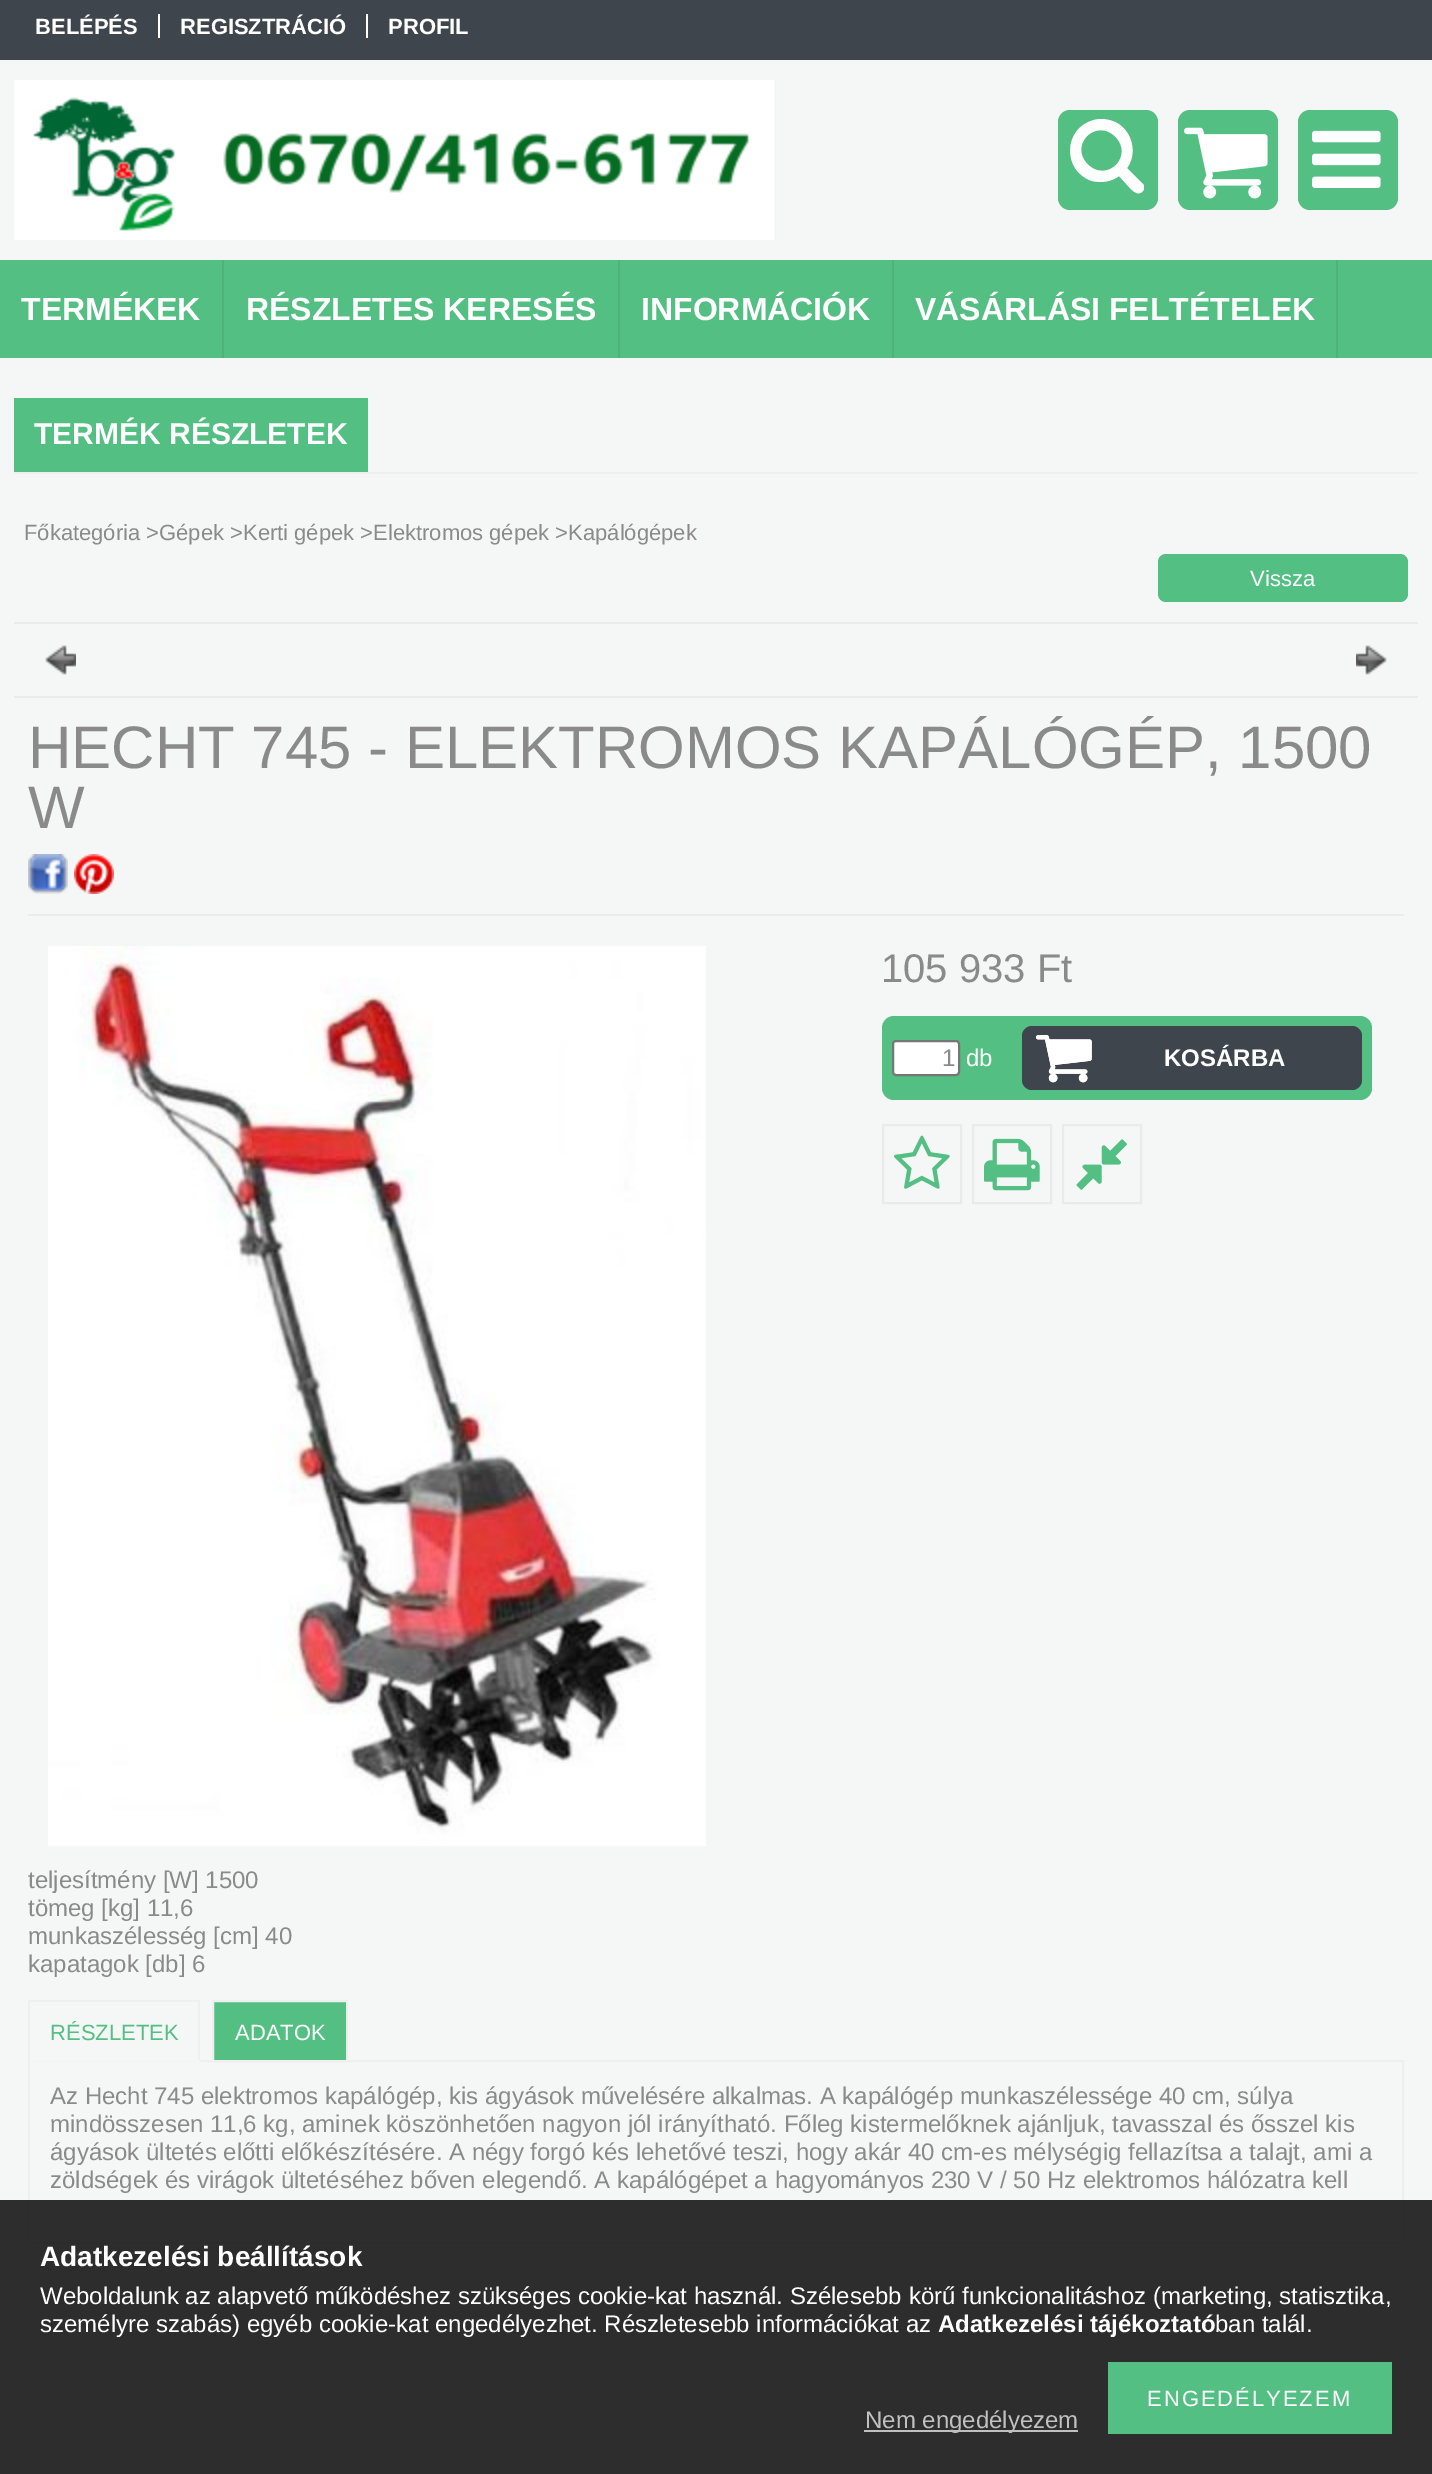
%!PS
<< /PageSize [1432 2474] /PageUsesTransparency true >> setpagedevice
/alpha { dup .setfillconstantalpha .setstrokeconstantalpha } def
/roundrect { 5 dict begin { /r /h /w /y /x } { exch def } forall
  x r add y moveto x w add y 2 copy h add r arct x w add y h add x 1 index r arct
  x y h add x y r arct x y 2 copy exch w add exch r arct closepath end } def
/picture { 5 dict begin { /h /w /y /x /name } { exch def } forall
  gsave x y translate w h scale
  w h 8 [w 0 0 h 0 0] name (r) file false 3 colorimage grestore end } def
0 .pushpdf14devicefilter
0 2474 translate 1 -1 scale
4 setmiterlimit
0.961 0.965 0.965 setrgbcolor
0 0 1432 2474 rectfill
0.243 0.271 0.298 setrgbcolor
0 0 1432 60 rectfill
/LiberationSans-Bold [22 0 0 -22 0 0] selectfont
1 setgray
35 34 moveto (BELÉPÉS) show
158 14 2 24 rectfill
180 34 moveto (REGISZTRÁCIÓ) show
366 14 2 24 rectfill
388 34 moveto (PROFIL) show
(img1.rgb) 14 80 760 160 picture
0.329 0.749 0.514 setrgbcolor
1058 110 100 100 12 roundrect fill
1 setgray
newpath 1116 165 moveto 1134 146 1106 118 1087 136 curveto 1069 155 1097 183 1116 165 curveto closepath 1144 188 moveto 1144 190 1143 191 1142 192 curveto 1137 196 1132 190 1129 187 curveto 1119 176 lineto 1111 182 1101 183 1092 181 curveto 1062 171 1063 128 1094 120 curveto 1101 118 1108 119 1115 122 curveto 1132 130 1138 153 1127 168 curveto 1143 184 lineto 1144 185 1144 186 1144 188 curveto closepath fill
0.329 0.749 0.514 setrgbcolor
1178 110 100 100 12 roundrect fill
(img2.rgb) 1184 127 84 72 picture
1298 110 100 100 12 roundrect fill
(img3.rgb) 1312 130 69 58 picture
0 260 1432 98 rectfill
0.306 0.698 0.478 setrgbcolor
222 260 2 98 rectfill
/LiberationSans-Bold [32 0 0 -32 0 0] selectfont
1 setgray
21 320 moveto (TERMÉKEK) show
0.306 0.698 0.478 setrgbcolor
618 260 2 98 rectfill
1 setgray
246 320 moveto (RÉSZLETES KERESÉS) show
0.306 0.698 0.478 setrgbcolor
892 260 2 98 rectfill
1 setgray
641 320 moveto (INFORMÁCIÓK) show
0.306 0.698 0.478 setrgbcolor
1336 260 2 98 rectfill
1 setgray
915 320 moveto (VÁSÁRLÁSI FELTÉTELEK) show
0.937 setgray
14 472 1404 2 rectfill
0.329 0.749 0.514 setrgbcolor
14 398 354 74 rectfill
/LiberationSans-Bold [30 0 0 -30 0 0] selectfont
1 setgray
34 444 moveto (TERMÉK RÉSZLETEK) show
/LiberationSans-Regular [22 0 0 -22 0 0] selectfont
0.545 0.541 0.541 setrgbcolor
24 540 moveto (Főkategória >Gépek >Kerti gépek >Elektromos gépek >Kapálógépek) show
0.329 0.749 0.514 setrgbcolor
1158 554 250 48 8 roundrect fill
1 setgray
1250 586 moveto (Vissza) show
0.925 0.918 0.918 setrgbcolor
14 622 1404 2 rectfill
(img4.rgb) 45 645 31 30 picture
(img5.rgb) 1356 645 31 30 picture
14 696 1404 2 rectfill
28 914 1376 2 rectfill
/LiberationSans-Regular [60 0 0 -60 0 0] selectfont
0.545 0.541 0.541 setrgbcolor
28 768 moveto (HECHT 745 - ELEKTROMOS KAPÁLÓGÉP, 1500) show
28 828 moveto (W) show
(img6.rgb) 28 854 40 40 picture
(img7.rgb) 74 854 40 40 picture
(img8.rgb) 48 946 658 900 picture
/LiberationSans-Regular [40 0 0 -40 0 0] selectfont
881 982 moveto (105 933 Ft) show
0.329 0.749 0.514 setrgbcolor
882 1016 490 84 12 roundrect fill
1 setgray
893 1041 66 34 3 roundrect gsave fill grestore
0.463 setgray
2 setlinewidth
stroke
/LiberationSans-Regular [24 0 0 -24 0 0] selectfont
0.545 0.541 0.541 setrgbcolor
942 1066 moveto (1) show
1 setgray
966 1066 moveto (db) show
0.243 0.271 0.298 setrgbcolor
1022 1026 340 64 10 roundrect fill
(img9.rgb) 1036 1035 56 48 picture
(img10.rgb) 1036 1035 56 48 picture
/LiberationSans-Bold [24 0 0 -24 0 0] selectfont
1 setgray
1164 1066 moveto (KOSÁRBA) show
0.918 setgray
883 1125 78 78 rectstroke
(img11.rgb) 894 1135 56 54 picture
973 1125 78 78 rectstroke
(img12.rgb) 984 1138 56 53 picture
1063 1125 78 78 rectstroke
(img13.rgb) 1076 1139 51 51 picture
/LiberationSans-Regular [24 0 0 -24 0 0] selectfont
0.545 0.541 0.541 setrgbcolor
28 1888 moveto (teljesítmény [W] 1500) show
28 1916 moveto (tömeg [kg] 11,6) show
28 1944 moveto (munkaszélesség [cm] 40) show
28 1972 moveto (kapatagok [db] 6) show
0.937 setgray
28 2000 172 2 rectfill
29 2061 1374 182 rectstroke
198 2000 2 62 rectfill
0.961 setgray
28 2060 172 2 rectfill
0.937 setgray
28 2000 2 62 rectfill
/LiberationSans-Regular [22 0 0 -22 0 0] selectfont
0.329 0.749 0.514 setrgbcolor
50 2040 moveto (RÉSZLETEK) show
newpath 213 2001 moveto 347 2001 lineto 347 2061 lineto 213 2061 lineto closepath gsave fill grestore
0.937 setgray
stroke
1 setgray
235 2040 moveto (ADATOK) show
/LiberationSans-Regular [24 0 0 -24 0 0] selectfont
0.545 0.541 0.541 setrgbcolor
50 2104 moveto (Az Hecht 745 elektromos kapálógép, kis ágyások művelésére alkalmas. A kapálógép munkaszélessége 40 cm, súlya) show
50 2132 moveto (mindösszesen 11,6 kg, aminek köszönhetően nagyon jól irányítható. Főleg kistermelőknek ajánljuk, tavasszal és ősszel kis) show
50 2160 moveto (ágyások ültetés előtti előkészítésére. A négy forgó kés lehetővé teszi, hogy akár 40 cm-es mélységig fellazítsa a talajt, ami a) show
50 2188 moveto (zöldségek és virágok ültetéséhez bőven elegendő. A kapálógépet a hagyományos 230 V / 50 Hz elektromos hálózatra kell) show
0.95 alpha
0.133 setgray
0 2200 1432 274 rectfill
/LiberationSans-Bold [28 0 0 -28 0 0] selectfont
1 alpha
1 setgray
40 2266 moveto (Adatkezelési beállítások) show
/LiberationSans-Regular [24 0 0 -24 0 0] selectfont
40 2304 moveto (Weboldalunk az alapvető működéshez szükséges cookie-kat használ. Szélesebb körű funkcionalitáshoz \(marketing, statisztika,) show
40 2332 moveto (személyre szabás\) egyéb cookie-kat engedélyezhet. Részletesebb információkat az) show
/LiberationSans-Bold [24 0 0 -24 0 0] selectfont
938 2332 moveto (Adatkezelési tájékoztató) show
/LiberationSans-Regular [24 0 0 -24 0 0] selectfont
1215 2332 moveto (ban talál.) show
0.329 0.749 0.514 setrgbcolor
1108 2362 284 72 rectfill
/LiberationSans-Regular [22 0 0 -22 0 0] selectfont
1 setgray
1147 2406 moveto 2 0 (ENGEDÉLYEZEM) ashow
0.753 setgray
864 2430 214 2 rectfill
/LiberationSans-Regular [24 0 0 -24 0 0] selectfont
865 2428 moveto (Nem engedélyezem) show
.poppdf14devicefilter showpage
